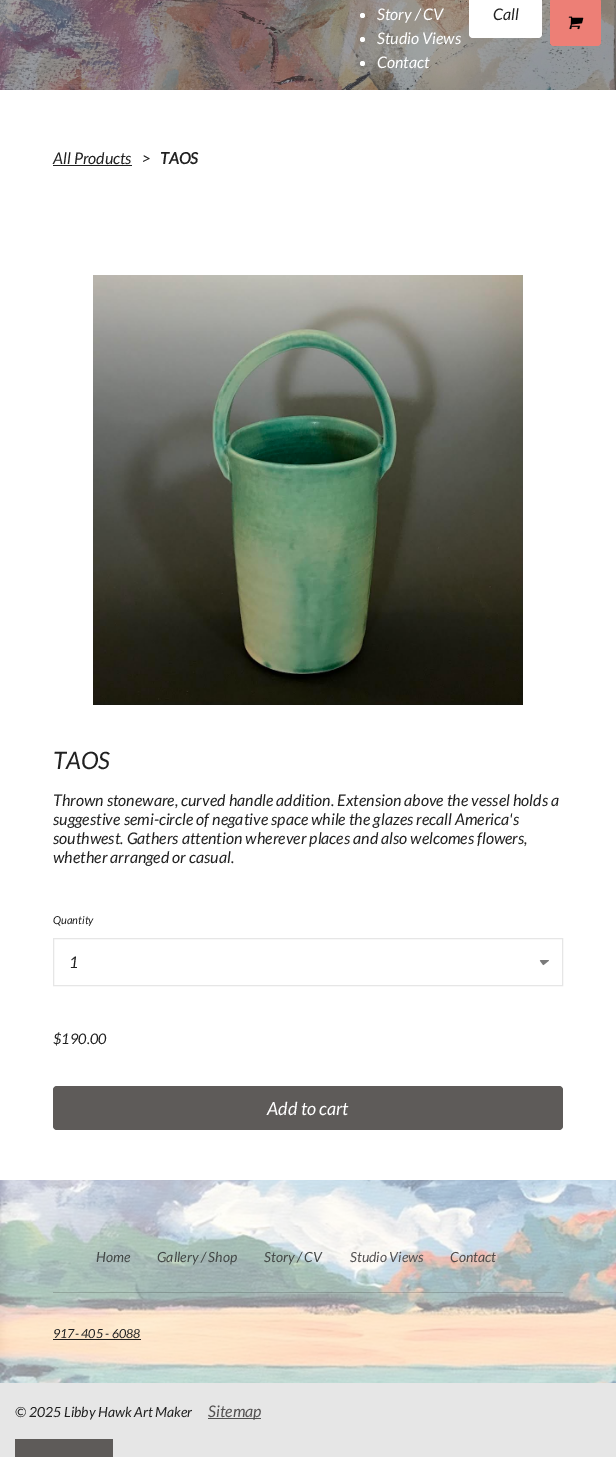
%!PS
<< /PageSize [616 1457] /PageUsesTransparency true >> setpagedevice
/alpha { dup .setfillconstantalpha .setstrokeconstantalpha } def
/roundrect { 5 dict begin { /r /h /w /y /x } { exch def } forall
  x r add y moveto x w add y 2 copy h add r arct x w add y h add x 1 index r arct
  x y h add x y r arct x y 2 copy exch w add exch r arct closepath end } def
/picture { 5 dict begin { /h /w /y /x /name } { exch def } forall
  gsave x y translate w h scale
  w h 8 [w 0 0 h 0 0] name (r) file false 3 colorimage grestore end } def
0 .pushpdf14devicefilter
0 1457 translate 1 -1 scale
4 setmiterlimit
1 setgray
0 0 616 1457 rectfill
0.369 0.357 0.349 setrgbcolor
0 0 616 90 rectfill
(img1.rgb) 0 0 616 90 picture
1 setgray
newpath 362.5 15.5 2.5 0 360 arc closepath fill
/Lato-Italic [16 0 0 -16 0 0] selectfont
377 20 moveto (Story / CV) show
newpath 362.5 39.5 2.5 0 360 arc closepath fill
377 44 moveto (Studio Views) show
newpath 362.5 63.5 2.5 0 360 arc closepath fill
377 68 moveto (Contact) show
469 -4 73 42 4 roundrect fill
0.129 setgray
493 20 moveto (Call) show
0.929 0.498 0.463 setrgbcolor
550 -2 51 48 4 roundrect fill
(img2.rgb) 568 16 16 14 picture
0.129 setgray
53 164 moveto (All Products) show
53 165 79 1 rectfill
142 164 moveto (>) show
/Lato-BoldItalic [16 0 0 -16 0 0] selectfont
160 164 moveto (TAOS) show
(img3.rgb) 93 275 430 430 picture
/Lato-Italic [24 0 0 -24 0 0] selectfont
53 769 moveto (TAOS) show
/Lato-Italic [16 0 0 -16 0 0] selectfont
53 806 moveto (Thrown stoneware, curved handle addition. Extension above the vessel holds a) show
53 825 moveto (suggestive semi-circle of negative space while the glazes recall America's) show
53 844 moveto (southwest. Gathers attention wherever places and also welcomes flowers,) show
53 863 moveto (whether arranged or casual.) show
/Lato-Italic [11 0 0 -11 0 0] selectfont
53 924 moveto (Quantity) show
0.902 setgray
53.5 938.5 509 47 rectstroke
/Lato-Italic [16 0 0 -16 0 0] selectfont
0.129 setgray
69 968 moveto (1) show
(img4.rgb) 539 960 10 6 picture
/Lato-Italic [14.5 0 0 -14.5 0 0] selectfont
53 1044 moveto ($190.00) show
0.369 0.357 0.349 setrgbcolor
53 1086 510 44 4 roundrect fill
/Lato-Italic [18 0 0 -18 0 0] selectfont
1 setgray
267 1115 moveto (Add to cart) show
(img5.rgb) 0 1180 616 203 picture
/Lato-Italic [14 0 0 -14 0 0] selectfont
0.263 0.282 0.278 setrgbcolor
96 1262 moveto (Home) show
157 1262 moveto (Gallery / Shop) show
264 1262 moveto (Story / CV) show
0.329 0.322 0.322 setrgbcolor
350 1262 moveto (Studio Views) show
0.318 0.294 0.286 setrgbcolor
450 1262 moveto (Contact) show
0.2 alpha
0.129 setgray
53 1292 510 1 rectfill
/Lato-Italic [12.5 0 0 -12.5 0 0] selectfont
1 alpha
53 1338 moveto (917- 405 - 6088) show
53 1339 88 1 rectfill
0.902 setgray
0 1383 616 74 rectfill
/Lato-Italic [14 0 0 -14 0 0] selectfont
0.129 setgray
15 1417 moveto (© 2025 Libby Hawk Art Maker) show
0.322 setgray
208 1418 53 1 rectfill
/Lato-Italic [16 0 0 -16 0 0] selectfont
0.329 0.322 0.322 setrgbcolor
208 1417 moveto (Sitemap) show
0.369 0.357 0.349 setrgbcolor
15 1439 98 18 rectfill
.poppdf14devicefilter showpage
